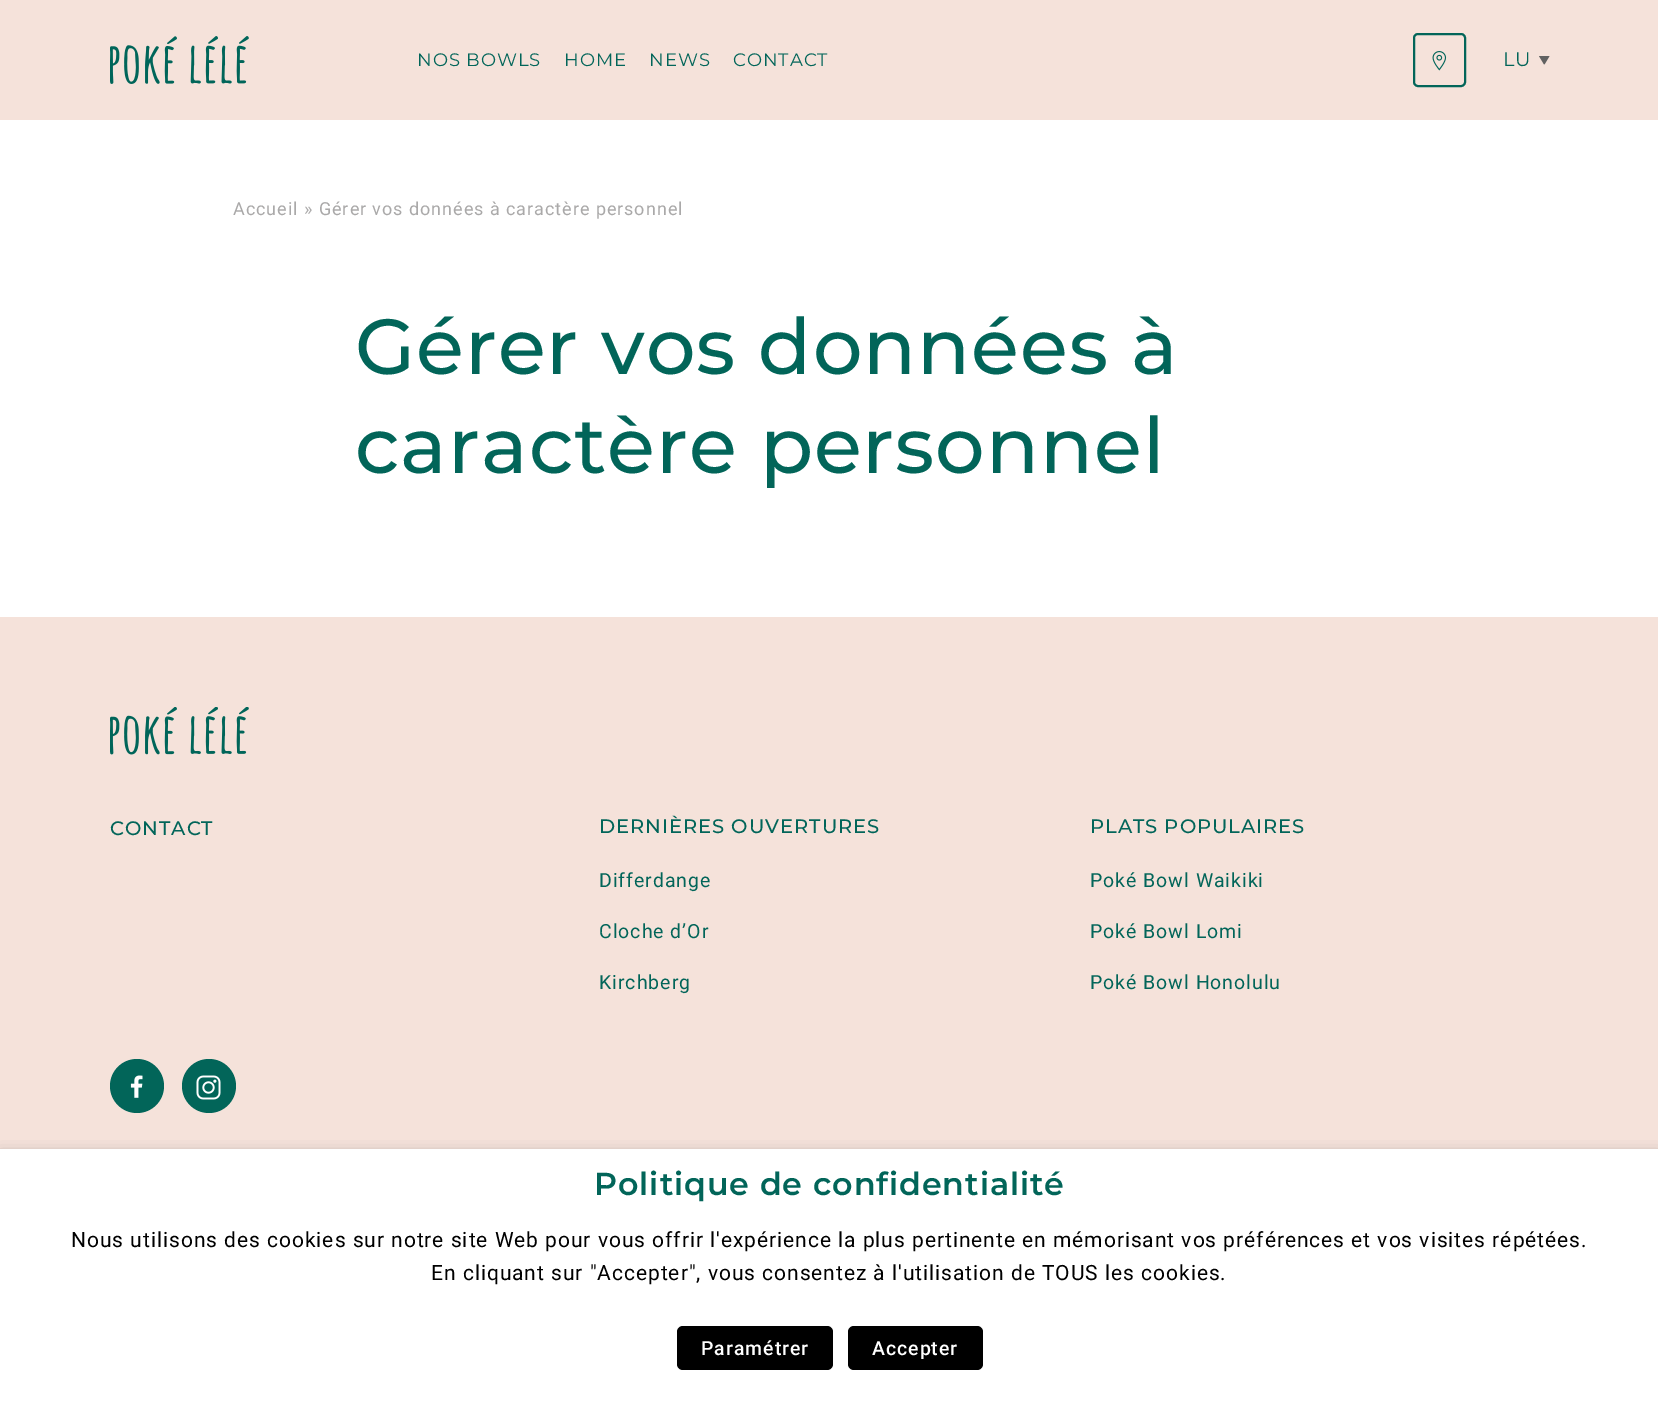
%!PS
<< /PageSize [1658 1422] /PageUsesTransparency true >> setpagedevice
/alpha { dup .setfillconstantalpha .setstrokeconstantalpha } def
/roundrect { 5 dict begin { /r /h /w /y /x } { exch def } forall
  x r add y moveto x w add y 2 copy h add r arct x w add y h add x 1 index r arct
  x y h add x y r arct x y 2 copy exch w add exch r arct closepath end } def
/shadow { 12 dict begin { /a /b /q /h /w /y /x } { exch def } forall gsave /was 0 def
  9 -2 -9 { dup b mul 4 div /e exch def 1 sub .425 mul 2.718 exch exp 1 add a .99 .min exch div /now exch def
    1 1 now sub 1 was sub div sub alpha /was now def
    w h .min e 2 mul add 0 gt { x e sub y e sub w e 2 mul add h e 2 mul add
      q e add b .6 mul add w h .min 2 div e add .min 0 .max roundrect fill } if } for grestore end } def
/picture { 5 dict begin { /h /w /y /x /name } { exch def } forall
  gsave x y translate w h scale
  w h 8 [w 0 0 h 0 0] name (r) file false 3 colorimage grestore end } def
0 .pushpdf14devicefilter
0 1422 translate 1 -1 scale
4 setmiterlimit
1 setgray
0 0 1658 1422 rectfill
0.961 0.886 0.855 setrgbcolor
0 0 1658 120 rectfill
(img1.rgb) 110 36 139 48 picture
/Montserrat-Regular [18 0 0 -18 0 0] selectfont
0.008 0.396 0.349 setrgbcolor
417 66 moveto 0.96 0 (NOS BOWLS) ashow
564 66 moveto 0.96 0 (HOME) ashow
649 66 moveto 0.96 0 (NEWS) ashow
733 66 moveto 0.96 0 (CONTACT) ashow
2 setlinewidth
1414 34 51 52 4 roundrect stroke
(img2.rgb) 1432 51 15 20 picture
/Montserrat-Regular [19.5 0 0 -19.5 0 0] selectfont
1503 66 moveto 0.96 0 (LU) ashow
(img3.rgb) 1539 56 11 9 picture
/Roboto-Regular [18 0 0 -18 0 0] selectfont
0.667 0.663 0.663 setrgbcolor
233 215 moveto 0.96 0 (Accueil » Gérer vos données à caractère personnel) ashow
/Montserrat-Medium [78 0 0 -78 0 0] selectfont
0.008 0.396 0.349 setrgbcolor
355 374 moveto 0.96 0 (Gérer vos données à) ashow
355 473 moveto 0.96 0 (caractère personnel) ashow
0.961 0.886 0.855 setrgbcolor
0 617 1658 532 rectfill
(img4.rgb) 110 707 139 48 picture
/Montserrat-Medium [19.5 0 0 -19.5 0 0] selectfont
0.008 0.396 0.349 setrgbcolor
110 835 moveto 0.96 0 (CONTACT) ashow
599 833 moveto 0.96 0 (DERNIÈRES OUVERTURES) ashow
/Roboto-Regular [19.5 0 0 -19.5 0 0] selectfont
599 887 moveto 0.96 0 (Differdange) ashow
599 938 moveto 0.96 0 (Cloche d’Or) ashow
599 989 moveto 0.96 0 (Kirchberg) ashow
/Montserrat-Medium [19.5 0 0 -19.5 0 0] selectfont
1090 833 moveto 0.96 0 (PLATS POPULAIRES) ashow
/Roboto-Regular [19.5 0 0 -19.5 0 0] selectfont
1090 887 moveto 0.96 0 (Poké Bowl Waikiki) ashow
1090 938 moveto 0.96 0 (Poké Bowl Lomi) ashow
1090 989 moveto 0.96 0 (Poké Bowl Honolulu) ashow
newpath 137 1086 27 0 360 arc closepath fill
(img5.rgb) 130 1075 13 23 picture
newpath 209 1086 27 0 360 arc closepath fill
(img6.rgb) 196 1075 25 25 picture
0 setgray
0 1157 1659 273 0 7.5 0.5 shadow
1 setgray
0 1149 1658 273 rectfill
/Montserrat-SemiBold [31.7 0 0 -31.7 0 0] selectfont
0.008 0.396 0.349 setrgbcolor
594 1195 moveto 0.96 0 (Politique de confidentialité) ashow
/Roboto-Regular [21 0 0 -21 0 0] selectfont
0 setgray
71 1247 moveto 0.96 0 (Nous utilisons des cookies sur notre site Web pour vous offrir l'expérience la plus pertinente en mémorisant vos préférences et vos visites répétées.) ashow
431 1280 moveto 0.96 0 (En cliquant sur "Accepter", vous consentez à l'utilisation de TOUS les cookies.) ashow
677 1326 156 44 6 roundrect fill
/Roboto-Medium [19.5 0 0 -19.5 0 0] selectfont
1 setgray
701 1355 moveto 0.96 0 (Paramétrer) ashow
0 setgray
848 1326 135 44 6 roundrect fill
1 setgray
872 1355 moveto 0.96 0 (Accepter) ashow
.poppdf14devicefilter showpage
